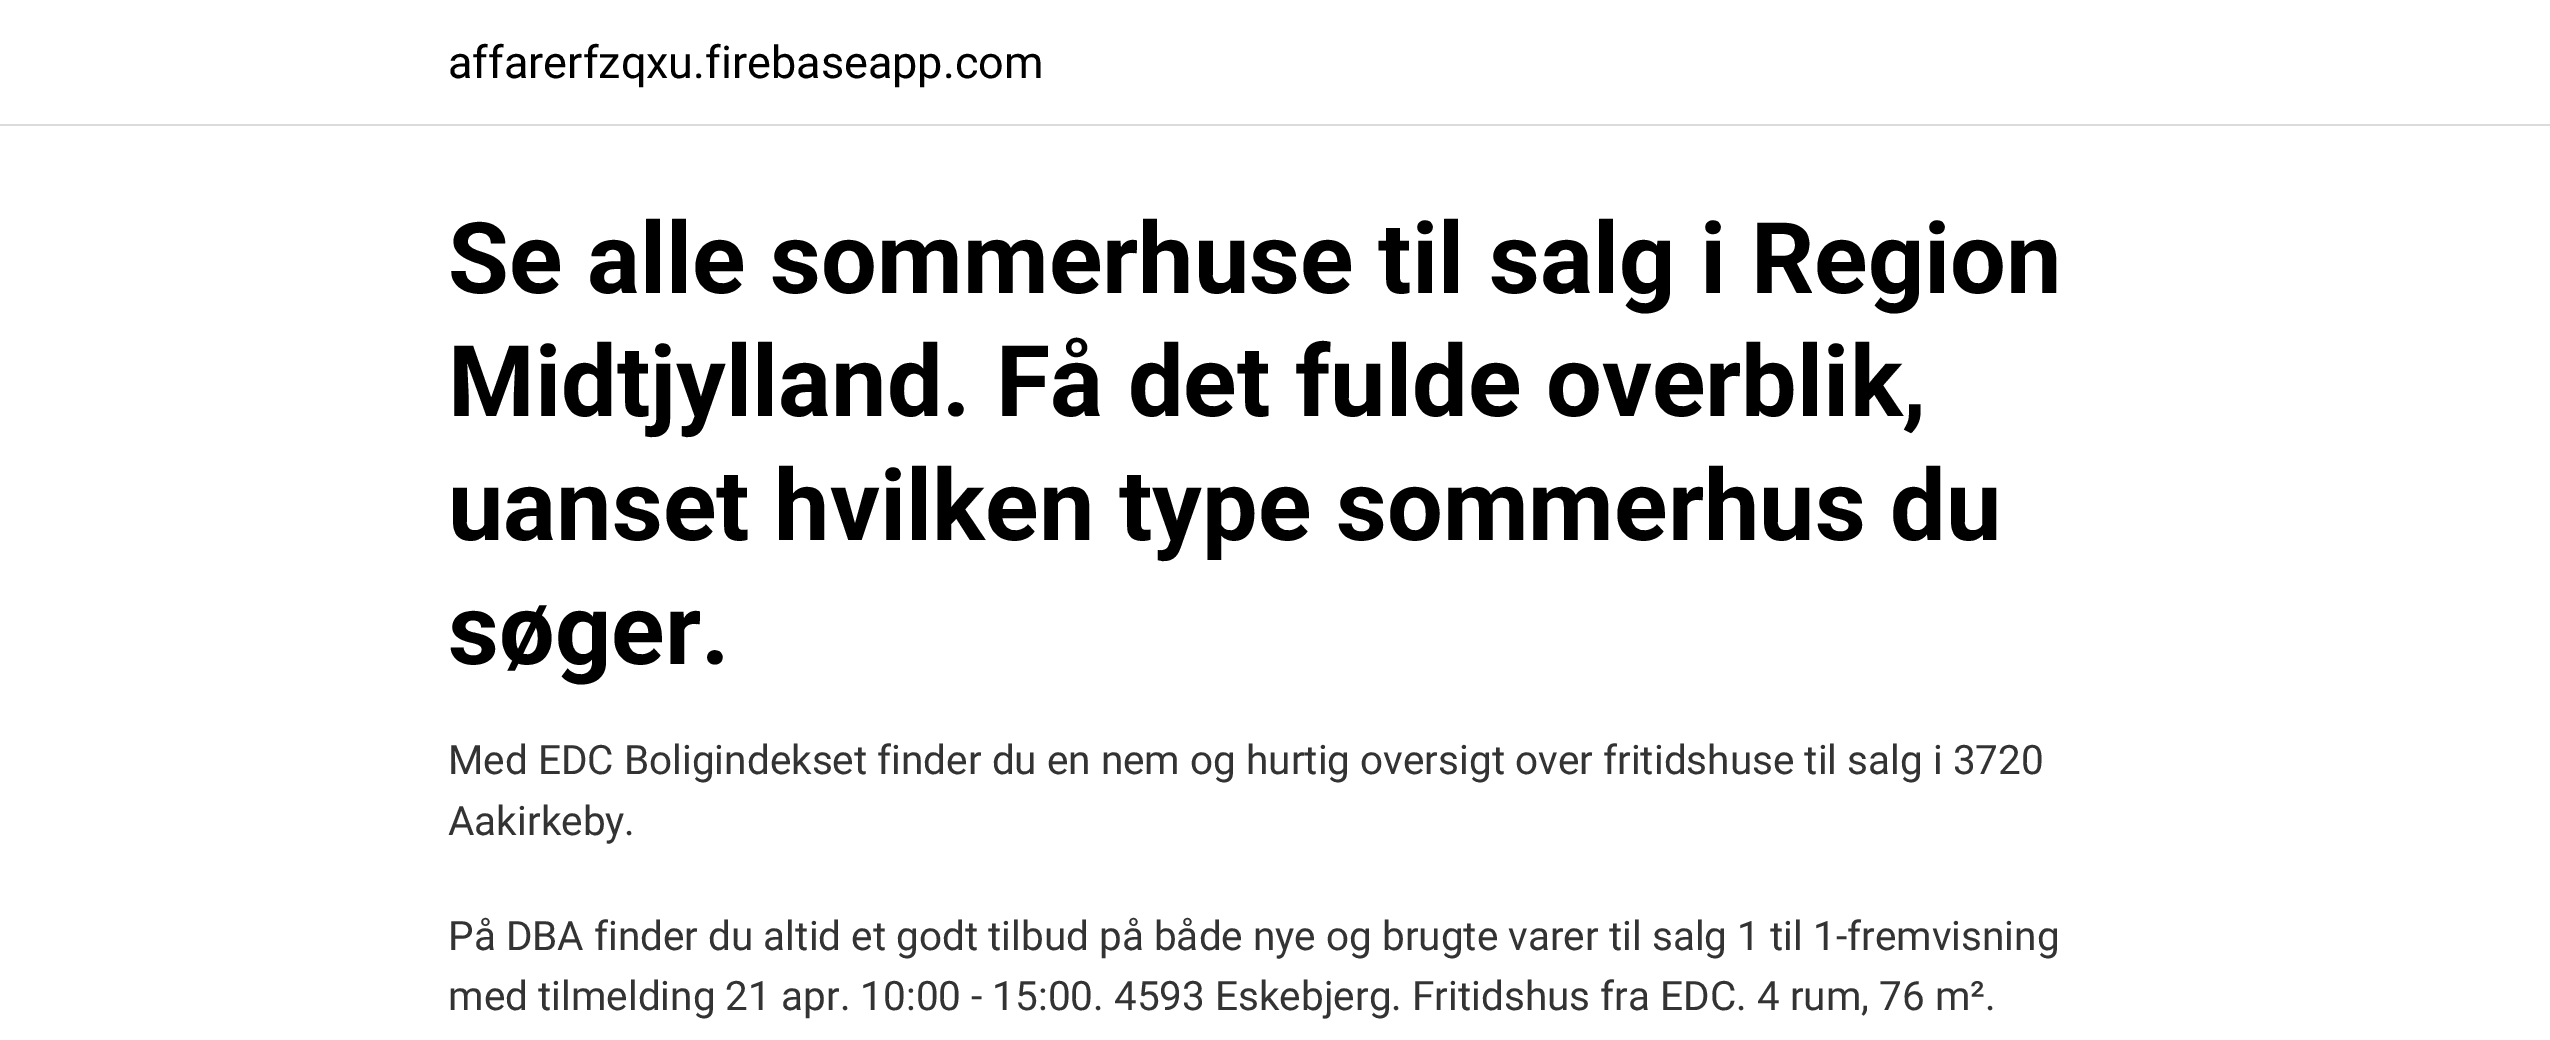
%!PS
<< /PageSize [2550 1040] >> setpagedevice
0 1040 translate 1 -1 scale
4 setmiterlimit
1 setgray
0 0 2550 1040 rectfill
0.859 setgray
0 124 2550 2 rectfill
/Roboto-Regular [45 0 0 -45 0 0] selectfont
0 setgray
448 78 moveto (affarerfzqxu.firebaseapp.com) show
/Roboto-Bold [99 0 0 -99 0 0] selectfont
448 293 moveto (Se alle sommerhuse til salg i Region) show
448 416 moveto (Midtjylland. Få det fulde overblik,) show
448 540 moveto (uanset hvilken type sommerhus du) show
448 664 moveto (søger.) show
/Roboto-Regular [40.5 0 0 -40.5 0 0] selectfont
0.2 setgray
448 774 moveto (Med EDC Boligindekset finder du en nem og hurtig oversigt over fritidshuse til salg i 3720) show
448 835 moveto (Aakirkeby.) show
448 950 moveto (På DBA finder du altid et godt tilbud på både nye og brugte varer til salg 1 til 1-fremvisning) show
448 1010 moveto (med tilmelding 21 apr. 10:00 - 15:00. 4593 Eskebjerg. Fritidshus fra EDC. 4 rum, 76 m².) show
showpage
